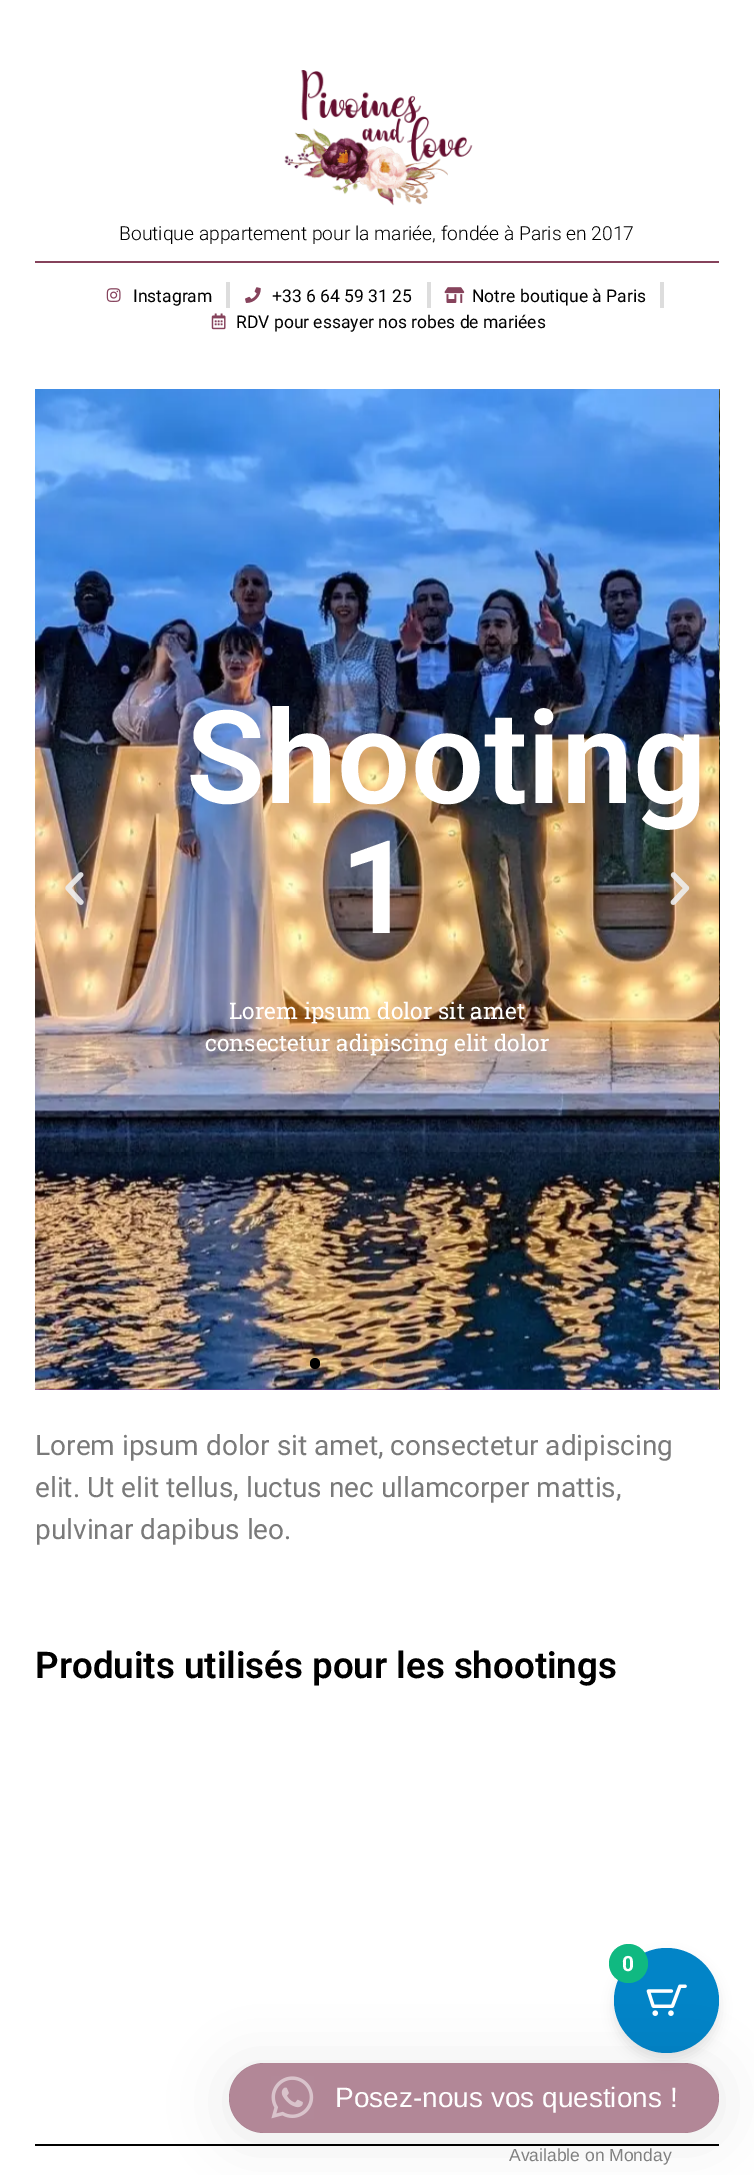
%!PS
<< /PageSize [754 2175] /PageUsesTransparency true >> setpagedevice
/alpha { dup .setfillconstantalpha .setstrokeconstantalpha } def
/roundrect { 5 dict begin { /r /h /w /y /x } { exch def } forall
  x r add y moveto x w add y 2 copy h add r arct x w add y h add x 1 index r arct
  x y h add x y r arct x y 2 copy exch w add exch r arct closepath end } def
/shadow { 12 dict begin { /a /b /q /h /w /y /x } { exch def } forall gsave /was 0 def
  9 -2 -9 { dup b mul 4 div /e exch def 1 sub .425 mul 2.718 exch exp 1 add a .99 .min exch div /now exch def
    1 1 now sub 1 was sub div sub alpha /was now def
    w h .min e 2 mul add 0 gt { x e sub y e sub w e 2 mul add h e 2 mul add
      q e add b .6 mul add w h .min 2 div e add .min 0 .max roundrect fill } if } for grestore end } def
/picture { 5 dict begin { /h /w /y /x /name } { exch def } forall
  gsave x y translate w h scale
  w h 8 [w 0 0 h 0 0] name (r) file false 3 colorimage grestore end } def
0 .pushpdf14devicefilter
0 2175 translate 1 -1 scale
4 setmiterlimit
1 setgray
0 0 754 2175 rectfill
(img1.rgb) 284 70 189 136 picture
/Roboto-Light [19.25 0 0 -19.25 0 0] selectfont
0 setgray
119 240 moveto (Boutique appartement pour la mariée, fondée à Paris en 2017) show
0.522 0.259 0.357 setrgbcolor
35 261 684 2 rectfill
(img2.rgb) 106 288 15 14 picture
/Roboto-Regular [17.5 0 0 -17.5 0 0] selectfont
0 setgray
133 302 moveto (Instagram) show
0.867 setgray
226 282 4 26 rectfill
(img3.rgb) 245 287 16 16 picture
0 setgray
272 302 moveto (+33 6 64 59 31 25) show
0.867 setgray
427 282 4 26 rectfill
(img4.rgb) 444 287 21 16 picture
0 setgray
472 302 moveto (Notre boutique à Paris) show
0.867 setgray
660 282 4 26 rectfill
(img5.rgb) 211 313 15 17 picture
0 setgray
236 328 moveto (RDV pour essayer nos robes de mariées) show
0.514 0.235 0.639 setrgbcolor
35 1389 684 1 rectfill
(img7.rgb) 35 389 685 1001 picture
(img6.rgb) 65 872 19 33 picture
/Roboto-SemiBold [129.5 0 0 -129.5 0 0] selectfont
1 setgray
186 803 moveto (Shooting) show
340 933 moveto (1) show
/RobotoSlab-Regular [22.75 0 0 -22.75 0 0] selectfont
229 1019 moveto (Lorem ipsum dolor sit amet) show
205 1051 moveto (consectetur adipiscing elit dolor) show
(img8.rgb) 719 389 1 1001 picture
(img9.rgb) 670 872 20 33 picture
0 setgray
310 1358 10 11 5 roundrect fill
0.2 alpha
newpath 346.5 1363.5 5.5 0 360 arc closepath fill
373 1358 10 11 5 roundrect fill
newpath 409.5 1363.5 5.5 0 360 arc closepath fill
436 1358 10 11 5 roundrect fill
/Roboto-Regular [28 0 0 -28 0 0] selectfont
1 alpha
0.478 setgray
35 1455 moveto (Lorem ipsum dolor sit amet, consectetur adipiscing) show
35 1497 moveto (elit. Ut elit tellus, luctus nec ullamcorper mattis,) show
35 1539 moveto (pulvinar dapibus leo.) show
/Roboto-SemiBold [36.75 0 0 -36.75 0 0] selectfont
0 setgray
35 1678 moveto (Produits utilisés pour les shootings) show
614 1955 105 105 52.5 6 0.1 shadow
0.008 0.518 0.78 setrgbcolor
newpath 666.5 2000.5 52.5 0 360 arc closepath fill
0.063 0.725 0.506 setrgbcolor
newpath 628.5 1963.5 19.5 0 360 arc closepath fill
/Roboto-Bold [21 0 0 -21 0 0] selectfont
1 setgray
622 1971 moveto (0) show
(img10.rgb) 646 1984 41 32 picture
0 setgray
35 2144 684 2 rectfill
gsave
newpath 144 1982 moveto 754 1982 lineto 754 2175 lineto 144 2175 lineto closepath 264 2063 moveto 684 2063 lineto 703.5 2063 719 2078.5 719 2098 curveto 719 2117.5 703.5 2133 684 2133 curveto 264 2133 lineto 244.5 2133 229 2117.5 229 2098 curveto 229 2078.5 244.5 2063 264 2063 curveto closepath eoclip newpath
229 2067 490 70 35 28 0.08 shadow
grestore
0.5 alpha
0.396 0.063 0.188 setrgbcolor
229 2063 490 70 35 roundrect fill
1 alpha
(img11.rgb) 271 2076 43 43 picture
/LiberationSans-Regular [28 0 0 -28 0 0] selectfont
1 setgray
335 2107 moveto (Posez-nous vos questions !) show
/LiberationSans-Regular [17.5 0 0 -17.5 0 0] selectfont
0.502 setgray
509 2161 moveto (Available on Monday) show
.poppdf14devicefilter showpage
